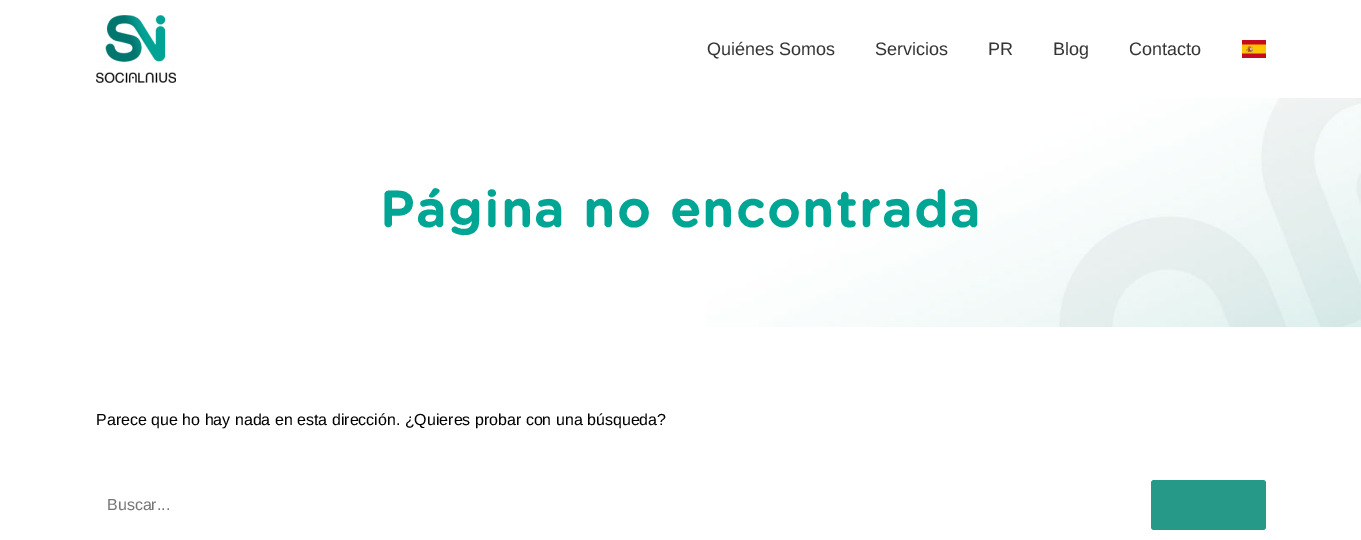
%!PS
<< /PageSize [1361 540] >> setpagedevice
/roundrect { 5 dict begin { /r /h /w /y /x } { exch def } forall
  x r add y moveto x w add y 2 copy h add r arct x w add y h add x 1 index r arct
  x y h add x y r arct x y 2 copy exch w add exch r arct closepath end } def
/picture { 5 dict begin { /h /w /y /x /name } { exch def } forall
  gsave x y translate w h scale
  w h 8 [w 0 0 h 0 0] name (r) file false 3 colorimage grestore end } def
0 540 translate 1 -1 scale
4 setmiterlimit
1 setgray
0 0 1361 540 rectfill
(img1.rgb) 96 15 80 68 picture
/LiberationSans-Regular [18 0 0 -18 0 0] selectfont
0.208 setgray
707 55 moveto (Quiénes Somos) show
875 55 moveto (Servicios) show
988 55 moveto (PR) show
1053 55 moveto (Blog) show
1129 55 moveto (Contacto) show
(img2.rgb) 1242 40 24 18 picture
(img3.rgb) 706 98 655 229 picture
/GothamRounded-Bold [50 0 0 -50 0 0] selectfont
0 0.647 0.58 setrgbcolor
380 227 moveto 2.5 0 (Página no encontrada) ashow
/LiberationSans-Regular [16 0 0 -16 0 0] selectfont
0 setgray
96 425 moveto (Parece que ho hay nada en esta dirección. ¿Quieres probar con una búsqueda?) show
0.459 setgray
107 510 moveto (Buscar...) show
0.153 0.6 0.537 setrgbcolor
1151 480 115 50 3 roundrect fill
showpage
